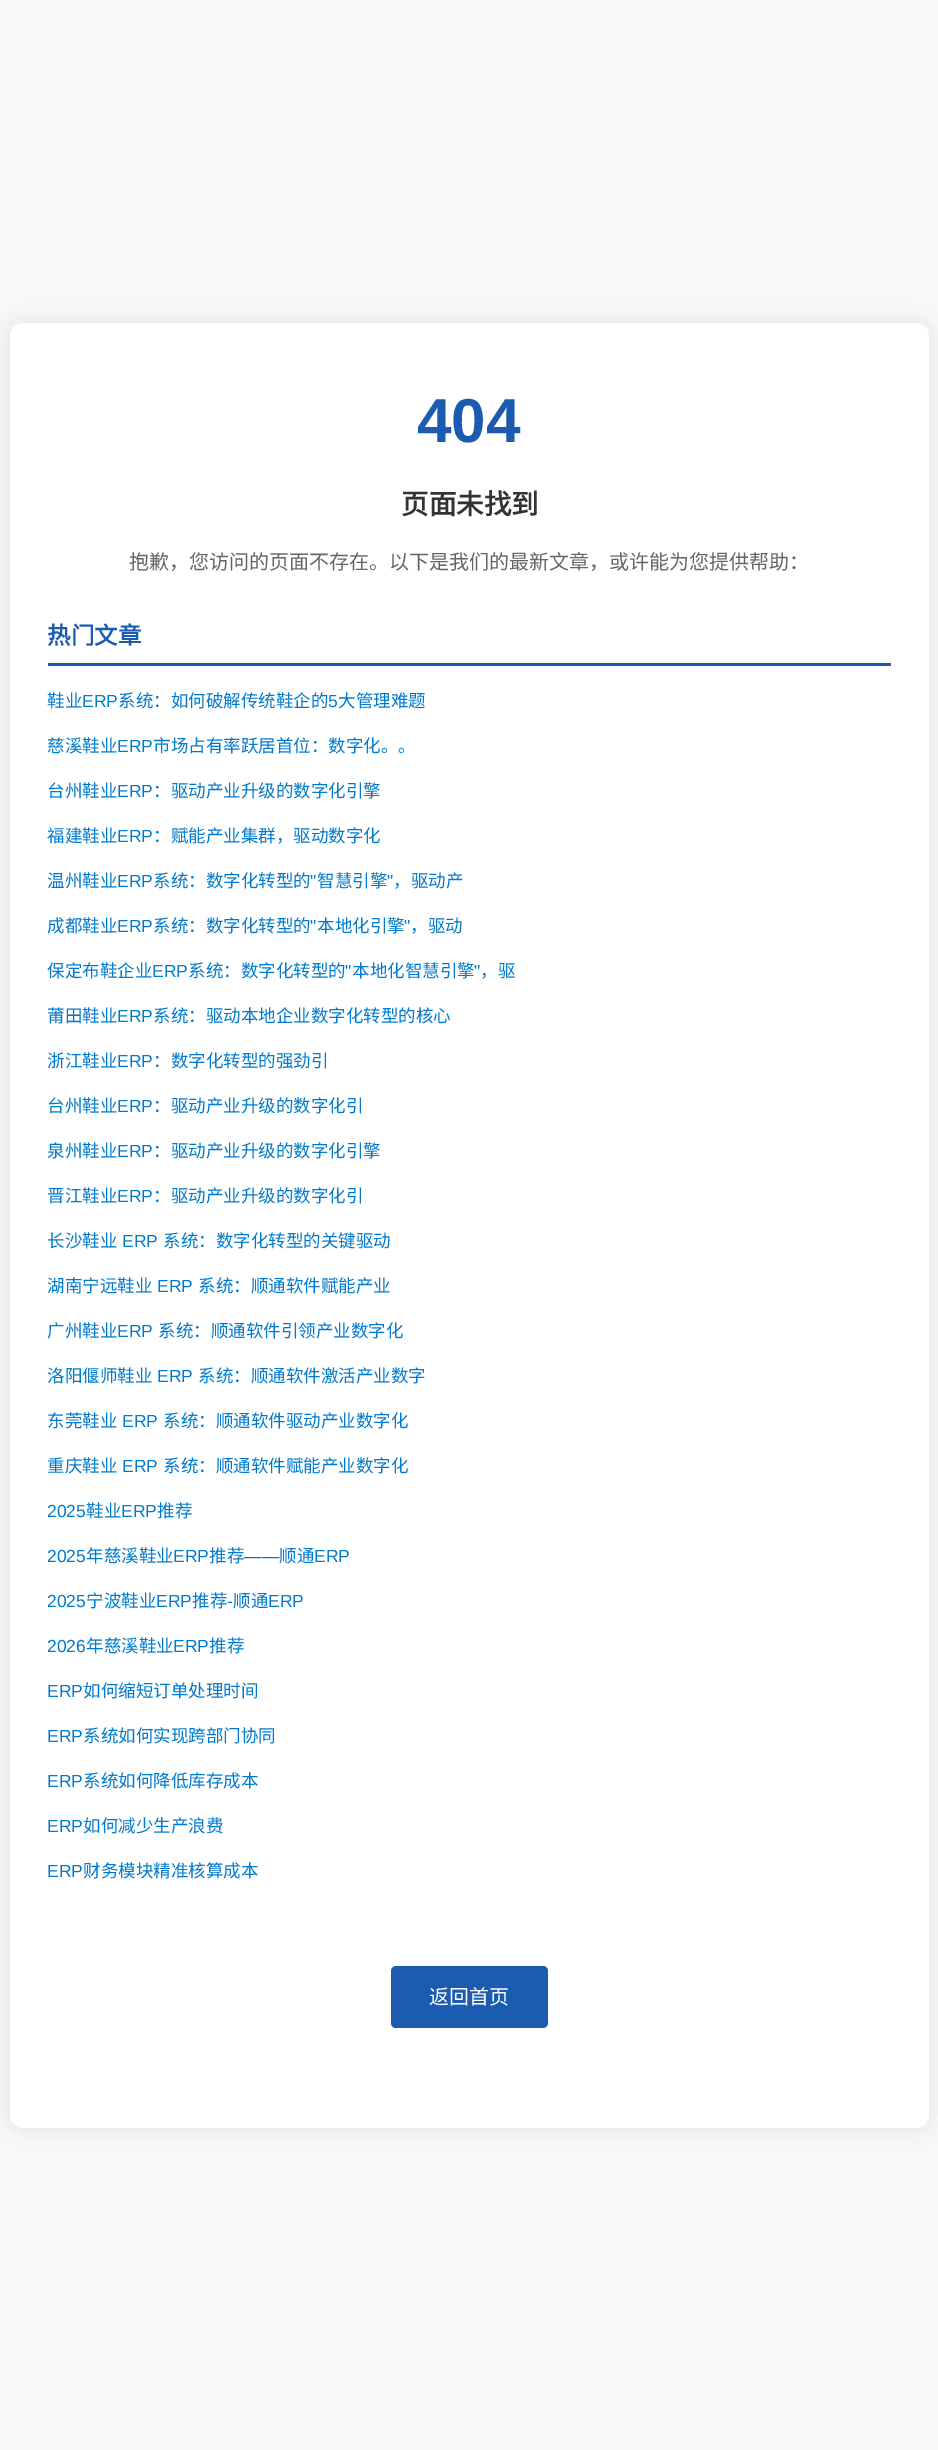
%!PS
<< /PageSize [938 2450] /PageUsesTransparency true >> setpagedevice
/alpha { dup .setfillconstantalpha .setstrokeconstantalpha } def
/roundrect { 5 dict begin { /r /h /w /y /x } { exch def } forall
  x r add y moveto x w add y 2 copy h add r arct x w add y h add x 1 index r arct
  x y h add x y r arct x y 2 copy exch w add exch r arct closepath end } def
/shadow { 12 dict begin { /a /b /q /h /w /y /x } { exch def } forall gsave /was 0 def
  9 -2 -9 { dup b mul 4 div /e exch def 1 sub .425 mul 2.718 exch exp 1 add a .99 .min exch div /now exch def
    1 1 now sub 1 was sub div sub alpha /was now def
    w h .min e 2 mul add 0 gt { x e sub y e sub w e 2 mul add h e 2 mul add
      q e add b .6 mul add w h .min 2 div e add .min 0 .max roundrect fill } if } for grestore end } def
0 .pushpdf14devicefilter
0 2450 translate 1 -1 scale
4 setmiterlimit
0.973 0.976 0.98 setrgbcolor
0 0 938 2450 rectfill
0 setgray
10 323 919 1805 13 12.5 0.1 shadow
1 setgray
10 323 919 1805 13 roundrect fill
/LiberationSans-Bold [62 0 0 -62 0 0] selectfont
0.11 0.361 0.69 setrgbcolor
417 442 moveto (404) show
/NotoSansCJKSC-Bold [27.5 0 0 -27.5 0 0] selectfont
0.2 setgray
401 514 moveto (页面未找到) show
/NotoSansCJKSC-Regular [20 0 0 -20 0 0] selectfont
0.4 setgray
129 569 moveto (抱歉，您访问的页面不存在。以下是我们的最新文章，或许能为您提供帮助：) show
0.11 0.361 0.69 setrgbcolor
48 663 843 3 rectfill
/NotoSansCJKSC-Bold [23.5 0 0 -23.5 0 0] selectfont
47 644 moveto (热门文章) show
/NotoSansCJKSC-Regular [17.5 0 0 -17.5 0 0] selectfont
0 0.478 0.8 setrgbcolor
47 707 moveto (鞋业) show
/LiberationSans-Regular [17.5 0 0 -17.5 0 0] selectfont
82 707 moveto (ERP) show
/NotoSansCJKSC-Regular [17.5 0 0 -17.5 0 0] selectfont
118 707 moveto (系统：如何破解传统鞋企的) show
/LiberationSans-Regular [17.5 0 0 -17.5 0 0] selectfont
328 707 moveto (5) show
/NotoSansCJKSC-Regular [17.5 0 0 -17.5 0 0] selectfont
338 707 moveto (大管理难题) show
47 752 moveto (慈溪鞋业) show
/LiberationSans-Regular [17.5 0 0 -17.5 0 0] selectfont
117 752 moveto (ERP) show
/NotoSansCJKSC-Regular [17.5 0 0 -17.5 0 0] selectfont
153 752 moveto (市场占有率跃居首位：数字化。。) show
47 797 moveto (台州鞋业) show
/LiberationSans-Regular [17.5 0 0 -17.5 0 0] selectfont
117 797 moveto (ERP) show
/NotoSansCJKSC-Regular [17.5 0 0 -17.5 0 0] selectfont
153 797 moveto (：驱动产业升级的数字化引擎) show
47 842 moveto (福建鞋业) show
/LiberationSans-Regular [17.5 0 0 -17.5 0 0] selectfont
117 842 moveto (ERP) show
/NotoSansCJKSC-Regular [17.5 0 0 -17.5 0 0] selectfont
153 842 moveto (：赋能产业集群，驱动数字化) show
47 887 moveto (温州鞋业) show
/LiberationSans-Regular [17.5 0 0 -17.5 0 0] selectfont
117 887 moveto (ERP) show
/NotoSansCJKSC-Regular [17.5 0 0 -17.5 0 0] selectfont
153 887 moveto (系统：数字化转型的) show
/LiberationSans-Regular [17.5 0 0 -17.5 0 0] selectfont
310 887 moveto (") show
/NotoSansCJKSC-Regular [17.5 0 0 -17.5 0 0] selectfont
317 887 moveto (智慧引擎) show
/LiberationSans-Regular [17.5 0 0 -17.5 0 0] selectfont
387 887 moveto (") show
/NotoSansCJKSC-Regular [17.5 0 0 -17.5 0 0] selectfont
393 887 moveto (，驱动产) show
47 932 moveto (成都鞋业) show
/LiberationSans-Regular [17.5 0 0 -17.5 0 0] selectfont
117 932 moveto (ERP) show
/NotoSansCJKSC-Regular [17.5 0 0 -17.5 0 0] selectfont
153 932 moveto (系统：数字化转型的) show
/LiberationSans-Regular [17.5 0 0 -17.5 0 0] selectfont
310 932 moveto (") show
/NotoSansCJKSC-Regular [17.5 0 0 -17.5 0 0] selectfont
317 932 moveto (本地化引擎) show
/LiberationSans-Regular [17.5 0 0 -17.5 0 0] selectfont
404 932 moveto (") show
/NotoSansCJKSC-Regular [17.5 0 0 -17.5 0 0] selectfont
410 932 moveto (，驱动) show
47 977 moveto (保定布鞋企业) show
/LiberationSans-Regular [17.5 0 0 -17.5 0 0] selectfont
152 977 moveto (ERP) show
/NotoSansCJKSC-Regular [17.5 0 0 -17.5 0 0] selectfont
188 977 moveto (系统：数字化转型的) show
/LiberationSans-Regular [17.5 0 0 -17.5 0 0] selectfont
345 977 moveto (") show
/NotoSansCJKSC-Regular [17.5 0 0 -17.5 0 0] selectfont
352 977 moveto (本地化智慧引擎) show
/LiberationSans-Regular [17.5 0 0 -17.5 0 0] selectfont
474 977 moveto (") show
/NotoSansCJKSC-Regular [17.5 0 0 -17.5 0 0] selectfont
480 977 moveto (，驱) show
47 1022 moveto (莆田鞋业) show
/LiberationSans-Regular [17.5 0 0 -17.5 0 0] selectfont
117 1022 moveto (ERP) show
/NotoSansCJKSC-Regular [17.5 0 0 -17.5 0 0] selectfont
153 1022 moveto (系统：驱动本地企业数字化转型的核心) show
47 1067 moveto (浙江鞋业) show
/LiberationSans-Regular [17.5 0 0 -17.5 0 0] selectfont
117 1067 moveto (ERP) show
/NotoSansCJKSC-Regular [17.5 0 0 -17.5 0 0] selectfont
153 1067 moveto (：数字化转型的强劲引) show
47 1112 moveto (台州鞋业) show
/LiberationSans-Regular [17.5 0 0 -17.5 0 0] selectfont
117 1112 moveto (ERP) show
/NotoSansCJKSC-Regular [17.5 0 0 -17.5 0 0] selectfont
153 1112 moveto (：驱动产业升级的数字化引) show
47 1157 moveto (泉州鞋业) show
/LiberationSans-Regular [17.5 0 0 -17.5 0 0] selectfont
117 1157 moveto (ERP) show
/NotoSansCJKSC-Regular [17.5 0 0 -17.5 0 0] selectfont
153 1157 moveto (：驱动产业升级的数字化引擎) show
47 1202 moveto (晋江鞋业) show
/LiberationSans-Regular [17.5 0 0 -17.5 0 0] selectfont
117 1202 moveto (ERP) show
/NotoSansCJKSC-Regular [17.5 0 0 -17.5 0 0] selectfont
153 1202 moveto (：驱动产业升级的数字化引) show
47 1247 moveto (长沙鞋业) show
/LiberationSans-Regular [17.5 0 0 -17.5 0 0] selectfont
122 1247 moveto (ERP) show
/NotoSansCJKSC-Regular [17.5 0 0 -17.5 0 0] selectfont
163 1247 moveto (系统：数字化转型的关键驱动) show
47 1292 moveto (湖南宁远鞋业) show
/LiberationSans-Regular [17.5 0 0 -17.5 0 0] selectfont
157 1292 moveto (ERP) show
/NotoSansCJKSC-Regular [17.5 0 0 -17.5 0 0] selectfont
198 1292 moveto (系统：顺通软件赋能产业) show
47 1337 moveto (广州鞋业) show
/LiberationSans-Regular [17.5 0 0 -17.5 0 0] selectfont
117 1337 moveto (ERP) show
/NotoSansCJKSC-Regular [17.5 0 0 -17.5 0 0] selectfont
158 1337 moveto (系统：顺通软件引领产业数字化) show
47 1382 moveto (洛阳偃师鞋业) show
/LiberationSans-Regular [17.5 0 0 -17.5 0 0] selectfont
157 1382 moveto (ERP) show
/NotoSansCJKSC-Regular [17.5 0 0 -17.5 0 0] selectfont
198 1382 moveto (系统：顺通软件激活产业数字) show
47 1427 moveto (东莞鞋业) show
/LiberationSans-Regular [17.5 0 0 -17.5 0 0] selectfont
122 1427 moveto (ERP) show
/NotoSansCJKSC-Regular [17.5 0 0 -17.5 0 0] selectfont
163 1427 moveto (系统：顺通软件驱动产业数字化) show
47 1472 moveto (重庆鞋业) show
/LiberationSans-Regular [17.5 0 0 -17.5 0 0] selectfont
122 1472 moveto (ERP) show
/NotoSansCJKSC-Regular [17.5 0 0 -17.5 0 0] selectfont
163 1472 moveto (系统：顺通软件赋能产业数字化) show
/LiberationSans-Regular [17.5 0 0 -17.5 0 0] selectfont
47 1517 moveto (2025) show
/NotoSansCJKSC-Regular [17.5 0 0 -17.5 0 0] selectfont
86 1517 moveto (鞋业) show
/LiberationSans-Regular [17.5 0 0 -17.5 0 0] selectfont
121 1517 moveto (ERP) show
/NotoSansCJKSC-Regular [17.5 0 0 -17.5 0 0] selectfont
157 1517 moveto (推荐) show
/LiberationSans-Regular [17.5 0 0 -17.5 0 0] selectfont
47 1562 moveto (2025) show
/NotoSansCJKSC-Regular [17.5 0 0 -17.5 0 0] selectfont
86 1562 moveto (年慈溪鞋业) show
/LiberationSans-Regular [17.5 0 0 -17.5 0 0] selectfont
173 1562 moveto (ERP) show
/NotoSansCJKSC-Regular [17.5 0 0 -17.5 0 0] selectfont
209 1562 moveto (推荐) show
/LiberationSans-Regular [17.5 0 0 -17.5 0 0] selectfont
244 1562 moveto (——) show
/NotoSansCJKSC-Regular [17.5 0 0 -17.5 0 0] selectfont
279 1562 moveto (顺通) show
/LiberationSans-Regular [17.5 0 0 -17.5 0 0] selectfont
314 1562 moveto (ERP) show
47 1607 moveto (2025) show
/NotoSansCJKSC-Regular [17.5 0 0 -17.5 0 0] selectfont
86 1607 moveto (宁波鞋业) show
/LiberationSans-Regular [17.5 0 0 -17.5 0 0] selectfont
156 1607 moveto (ERP) show
/NotoSansCJKSC-Regular [17.5 0 0 -17.5 0 0] selectfont
192 1607 moveto (推荐) show
/LiberationSans-Regular [17.5 0 0 -17.5 0 0] selectfont
227 1607 moveto (-) show
/NotoSansCJKSC-Regular [17.5 0 0 -17.5 0 0] selectfont
233 1607 moveto (顺通) show
/LiberationSans-Regular [17.5 0 0 -17.5 0 0] selectfont
268 1607 moveto (ERP) show
47 1652 moveto (2026) show
/NotoSansCJKSC-Regular [17.5 0 0 -17.5 0 0] selectfont
86 1652 moveto (年慈溪鞋业) show
/LiberationSans-Regular [17.5 0 0 -17.5 0 0] selectfont
173 1652 moveto (ERP) show
/NotoSansCJKSC-Regular [17.5 0 0 -17.5 0 0] selectfont
209 1652 moveto (推荐) show
/LiberationSans-Regular [17.5 0 0 -17.5 0 0] selectfont
47 1697 moveto (ERP) show
/NotoSansCJKSC-Regular [17.5 0 0 -17.5 0 0] selectfont
83 1697 moveto (如何缩短订单处理时间) show
/LiberationSans-Regular [17.5 0 0 -17.5 0 0] selectfont
47 1742 moveto (ERP) show
/NotoSansCJKSC-Regular [17.5 0 0 -17.5 0 0] selectfont
83 1742 moveto (系统如何实现跨部门协同) show
/LiberationSans-Regular [17.5 0 0 -17.5 0 0] selectfont
47 1787 moveto (ERP) show
/NotoSansCJKSC-Regular [17.5 0 0 -17.5 0 0] selectfont
83 1787 moveto (系统如何降低库存成本) show
/LiberationSans-Regular [17.5 0 0 -17.5 0 0] selectfont
47 1832 moveto (ERP) show
/NotoSansCJKSC-Regular [17.5 0 0 -17.5 0 0] selectfont
83 1832 moveto (如何减少生产浪费) show
/LiberationSans-Regular [17.5 0 0 -17.5 0 0] selectfont
47 1877 moveto (ERP) show
/NotoSansCJKSC-Regular [17.5 0 0 -17.5 0 0] selectfont
83 1877 moveto (财务模块精准核算成本) show
0.11 0.361 0.69 setrgbcolor
391 1966 157 62 5 roundrect fill
/NotoSansCJKSC-Regular [20 0 0 -20 0 0] selectfont
1 setgray
429 2004 moveto (返回首页) show
.poppdf14devicefilter showpage
